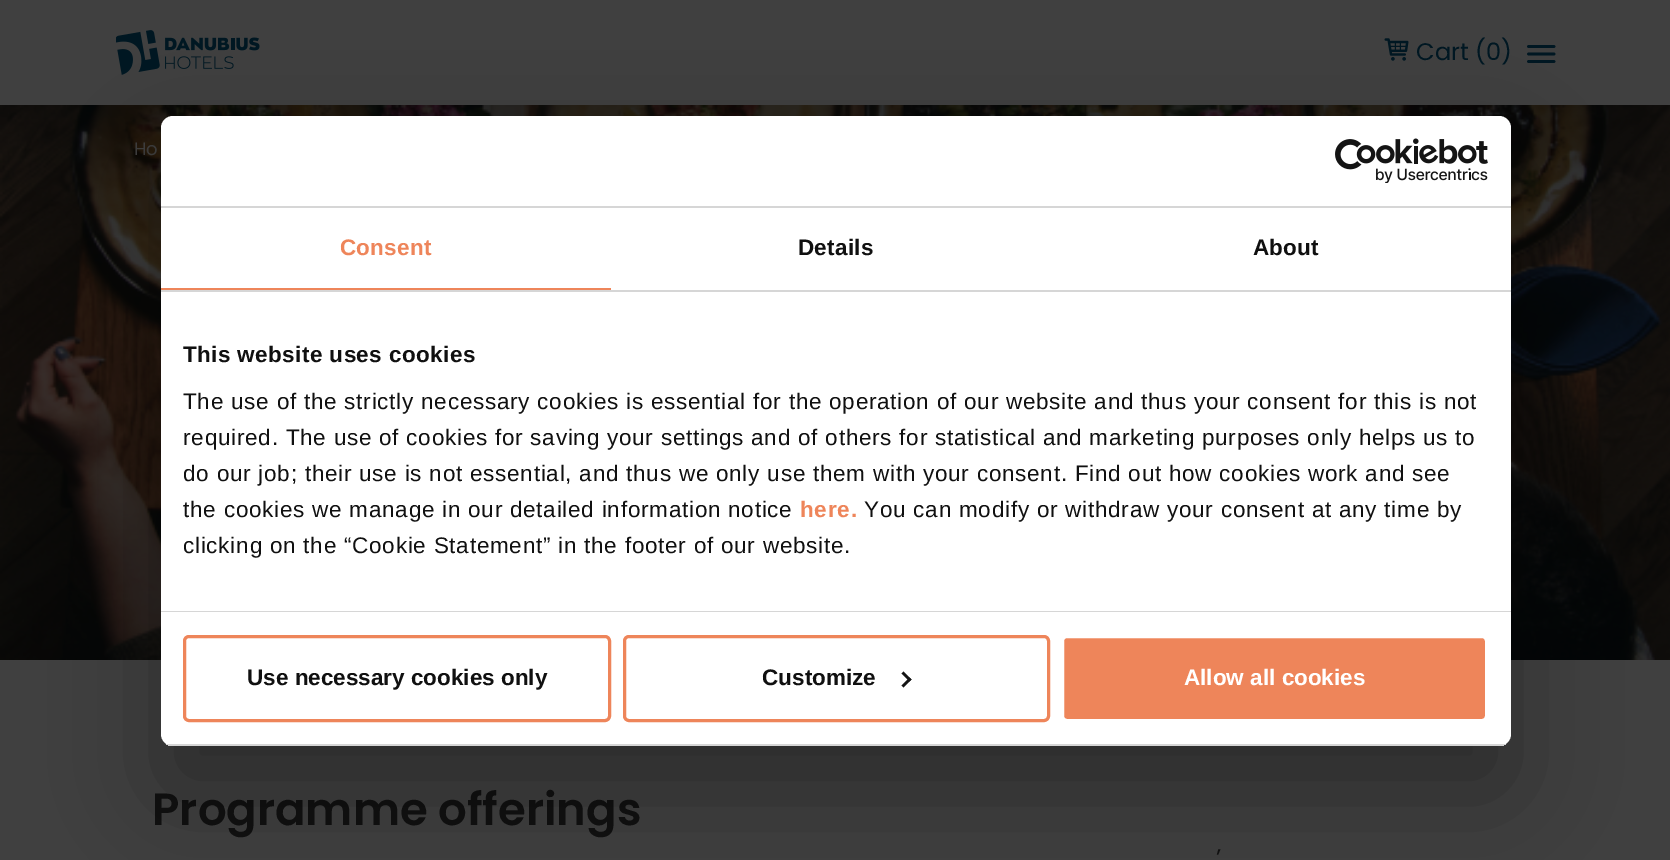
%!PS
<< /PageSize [1670 860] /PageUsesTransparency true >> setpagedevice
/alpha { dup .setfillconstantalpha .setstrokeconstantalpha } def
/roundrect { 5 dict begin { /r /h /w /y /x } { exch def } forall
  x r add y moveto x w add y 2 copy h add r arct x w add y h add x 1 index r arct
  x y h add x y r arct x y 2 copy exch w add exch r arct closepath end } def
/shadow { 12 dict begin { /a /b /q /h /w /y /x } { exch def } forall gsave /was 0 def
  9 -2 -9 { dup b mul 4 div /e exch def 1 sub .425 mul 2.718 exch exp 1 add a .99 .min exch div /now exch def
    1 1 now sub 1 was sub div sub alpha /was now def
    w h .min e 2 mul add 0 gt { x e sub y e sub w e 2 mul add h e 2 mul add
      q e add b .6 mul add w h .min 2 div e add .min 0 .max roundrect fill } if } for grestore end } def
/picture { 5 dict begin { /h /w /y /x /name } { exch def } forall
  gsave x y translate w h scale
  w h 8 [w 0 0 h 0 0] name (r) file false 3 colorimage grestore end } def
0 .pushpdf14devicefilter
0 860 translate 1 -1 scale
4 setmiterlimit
0.251 setgray
0 0 1670 860 rectfill
(img1.rgb) 116 30 144 45 picture
(img2.rgb) 1384 38 25 23 picture
/Poppins-Regular [24 0 0 -24 0 0] selectfont
0 0.09 0.133 setrgbcolor
1416 60 moveto (Cart \(0\)) show
2.7 setlinewidth
1 setlinecap
newpath 1528.5 54 moveto 1554 54 lineto 1528.5 61.5 moveto 1554 61.5 lineto 1528.5 46.5 moveto 1554 46.5 lineto stroke
(img3.rgb) 0 105 1670 555 picture
/Poppins-Regular [18 0 0 -18 0 0] selectfont
0.251 setgray
134 155 moveto (Ho) show
/Poppins-SemiBold [45 0 0 -45 0 0] selectfont
0.063 setgray
152 825 moveto (Programme offerings) show
/Poppins-Regular [24 0 0 -24 0 0] selectfont
1216 866 moveto (’) show
0 setgray
161 164 1350 630 12 51 0.3 shadow
1 setgray
161 116 1350 630 12 roundrect fill
0.839 setgray
161 206 1350 2 rectfill
(img4.rgb) 1335 138 153 45 picture
161 290 1350 2 rectfill
0.933 0.522 0.353 setrgbcolor
161 288 450 2 rectfill
/LiberationSans-Bold [22.5 0 0 -22.5 0 0] selectfont
340 255 moveto 0.25 0 (Consent) ashow
0.063 setgray
798 255 moveto 0.25 0 (Details) ashow
1253 255 moveto 0.25 0 (About) ashow
0.839 setgray
161 611 1350 1 rectfill
0.063 setgray
183 362 moveto 0.4 0 (This website uses cookies) ashow
/LiberationSans-Regular [22.5 0 0 -22.5 0 0] selectfont
183 409 moveto 0.75 0 (The use of the strictly necessary cookies is essential for the operation of our website and thus your consent for this is not) ashow
183 445 moveto 0.75 0 (required. The use of cookies for saving your settings and of others for statistical and marketing purposes only helps us to) ashow
183 481 moveto 0.75 0 (do our job; their use is not essential, and thus we only use them with your consent. Find out how cookies work and see) ashow
183 517 moveto 0.75 0 (the cookies we manage in our detailed information notice) ashow
/LiberationSans-Bold [22.5 0 0 -22.5 0 0] selectfont
0.933 0.522 0.353 setrgbcolor
800 517 moveto 0.75 0 (here.) ashow
/LiberationSans-Regular [22.5 0 0 -22.5 0 0] selectfont
0.063 setgray
864 517 moveto 0.75 0 (You can modify or withdraw your consent at any time by) ashow
183 553 moveto 0.75 0 (clicking on the “Cookie Statement” in the footer of our website.) ashow
gsave
161 116 1350 630 12 roundrect clip newpath
0.839 setgray
161 744 1350 2 rectfill
grestore
0.933 0.522 0.353 setrgbcolor
3 setlinewidth
0 setlinecap
184.5 636.5 425 84 4.5 roundrect stroke
/LiberationSans-Bold [22.5 0 0 -22.5 0 0] selectfont
0.063 setgray
247 685 moveto (Use necessary cookies only) show
0.933 0.522 0.353 setrgbcolor
624.5 636.5 424 84 4.5 roundrect stroke
0.063 setgray
762 685 moveto (Customize) show
0.078 setgray
newpath 903.5 671.5 moveto 911.5 679.5 lineto 909.5 681.5 lineto 901.5 673.5 lineto closepath fill
newpath 909.5 677.5 moveto 911.5 679.5 lineto 903.5 687.5 lineto 901.5 685.5 lineto closepath fill
0.933 0.522 0.353 setrgbcolor
1062.5 636.5 424 84 4.5 roundrect gsave fill grestore
1 setgray
stroke
1184 685 moveto (Allow all cookies) show
.poppdf14devicefilter showpage
